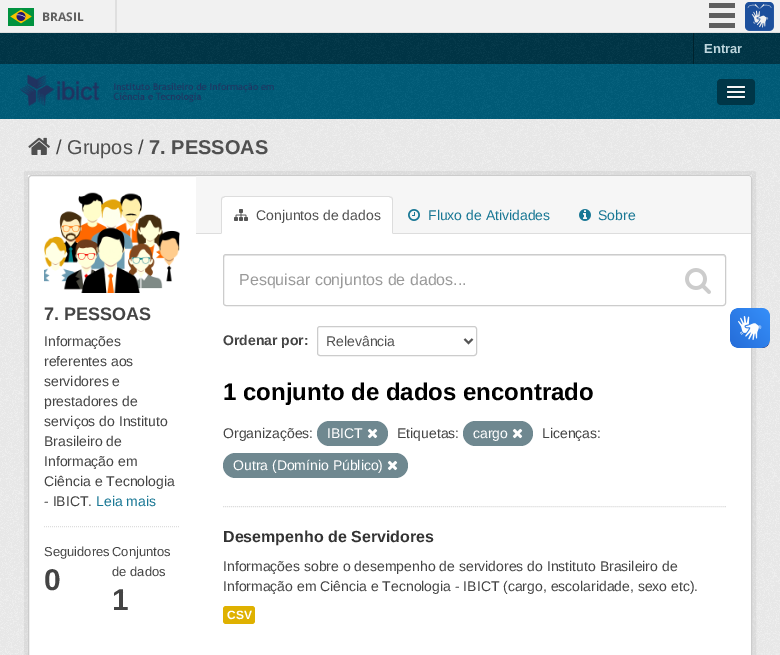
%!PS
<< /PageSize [780 655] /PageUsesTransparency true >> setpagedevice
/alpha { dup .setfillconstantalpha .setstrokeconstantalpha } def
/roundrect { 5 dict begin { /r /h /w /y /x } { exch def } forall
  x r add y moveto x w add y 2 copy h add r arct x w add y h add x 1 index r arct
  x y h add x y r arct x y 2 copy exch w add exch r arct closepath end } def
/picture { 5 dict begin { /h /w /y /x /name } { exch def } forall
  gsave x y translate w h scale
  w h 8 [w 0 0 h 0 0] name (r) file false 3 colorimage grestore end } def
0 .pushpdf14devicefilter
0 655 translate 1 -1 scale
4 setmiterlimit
0.945 setgray
0 0 780 655 rectfill
0.875 setgray
0 32 780 1 rectfill
115 0 2 32 rectfill
(img1.rgb) 8 8 26 18 picture
/OpenSans-Bold [12 0 0 -12 0 0] selectfont
0.376 setgray
42 21 moveto (BRASIL) show
709 3 26 5 rectfill
709 13 26 5 rectfill
709 23 26 5 rectfill
(img2.rgb) 745 2 29 29 picture
0 0.212 0.278 setrgbcolor
0 33 780 31 rectfill
(img3.rgb) 0 33 780 31 picture
0 0.137 0.18 setrgbcolor
693 33 1 31 rectfill
/LiberationSans-Bold [13 0 0 -13 0 0] selectfont
0.749 0.843 0.871 setrgbcolor
704 53 moveto (Entrar) show
0 0.365 0.478 setrgbcolor
0 64 780 55 rectfill
(img4.rgb) 0 64 780 55 picture
(img5.rgb) 20 75 254 31 picture
0 0.212 0.278 setrgbcolor
717 79 38 26 4 roundrect fill
0 0.161 0.208 setrgbcolor
newpath 727 87.5 moveto 726 89.5 730.5 89 730.5 89 curveto 741.5 89 lineto 741.5 89 746 89.5 745 87.5 curveto 744 88.5 737.5 88 736 88 curveto 734.5 88 728 88.5 727 87.5 curveto closepath fill
0.961 setgray
727 86 18 2 1 roundrect fill
0 0.161 0.208 setrgbcolor
newpath 727 92.5 moveto 726 94.5 730.5 94 730.5 94 curveto 741.5 94 lineto 741.5 94 746 94.5 745 92.5 curveto 744 93.5 737.5 93 736 93 curveto 734.5 93 728 93.5 727 92.5 curveto closepath fill
0.961 setgray
727 91 18 2 1 roundrect fill
0 0.161 0.208 setrgbcolor
newpath 727 97.5 moveto 726 99.5 730.5 99 730.5 99 curveto 741.5 99 lineto 741.5 99 746 99.5 745 97.5 curveto 744 98.5 737.5 98 736 98 curveto 734.5 98 728 98.5 727 97.5 curveto closepath fill
0.961 setgray
727 96 18 2 1 roundrect fill
0.933 setgray
0 119 780 536 rectfill
(img6.rgb) 0 119 780 536 picture
(img7.rgb) 28 137 22 18 picture
/LiberationSans-Regular [20 0 0 -20 0 0] selectfont
0.267 setgray
56 154 moveto (/) show
0.314 setgray
67 154 moveto (Grupos) show
0.267 setgray
138 154 moveto (/) show
/LiberationSans-Bold [20 0 0 -20 0 0] selectfont
0.314 setgray
149 154 moveto (7. PESSOAS) show
0.05 alpha
0 setgray
4 setlinewidth
26 173 728 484 rectstroke
1 alpha
1 setgray
28 175 724 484 4 roundrect fill
28 175 3 3 rectfill
0.8 setgray
1 setlinewidth
28.5 175.5 723 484 3.5 roundrect stroke
(img8.rgb) 44 192 136 101 picture
/LiberationSans-Bold [18 0 0 -18 0 0] selectfont
0.267 setgray
44 320 moveto (7. PESSOAS) show
/LiberationSans-Regular [14 0 0 -14 0 0] selectfont
44 346 moveto (Informações) show
44 366 moveto (referentes aos) show
44 386 moveto (servidores e) show
44 406 moveto (prestadores de) show
44 426 moveto (serviços do Instituto) show
44 446 moveto (Brasileiro de) show
44 466 moveto (Informação em) show
44 486 moveto (Ciência e Tecnologia) show
44 506 moveto (- IBICT.) show
0.094 0.467 0.58 setrgbcolor
96 506 moveto (Leia mais) show
0.867 setgray
[1 1] 0 setdash
newpath 44 526.5 moveto 180 526.5 lineto stroke
/LiberationSans-Regular [13 0 0 -13 0 0] selectfont
0.267 setgray
44 556 moveto (Seguidores) show
/LiberationSans-Bold [30 0 0 -30 0 0] selectfont
44 590 moveto (0) show
/LiberationSans-Regular [13 0 0 -13 0 0] selectfont
112 556 moveto (Conjuntos) show
112 576 moveto (de dados) show
/LiberationSans-Bold [30 0 0 -30 0 0] selectfont
112 610 moveto (1) show
0.965 setgray
newpath 196 176 moveto 748 176 lineto 749.5 176 751 177.5 751 179 curveto 751 234 lineto 196 234 lineto closepath fill
0.867 setgray
196 233 555 1 rectfill
1 setgray
newpath 225 196 moveto 389 196 lineto 391 196 393 198 393 200 curveto 393 234 lineto 221 234 lineto 221 200 lineto 221 198 223 196 225 196 curveto closepath fill
0.867 setgray
newpath 225 196 moveto 222 197 lineto 223 198 lineto 225 197 lineto 389 197 lineto 391 198 lineto 392 197 lineto 389 196 lineto closepath fill
newpath 393 234 moveto 393 200 lineto 393 199 392.5 198 392 197 curveto 391 198 lineto 392 198 392 199 392 200 curveto 392 233 lineto closepath fill
newpath 221 234 moveto 222 233 lineto 222 200 lineto 222 199 222 198 223 198 curveto 222 197 lineto 221.5 198 221 199 221 200 curveto closepath fill
(img9.rgb) 234 209 14 12 picture
/LiberationSans-Regular [14 0 0 -14 0 0] selectfont
0.314 setgray
256 220 moveto (Conjuntos de dados) show
(img10.rgb) 408 209 12 12 picture
0.094 0.467 0.58 setrgbcolor
428 220 moveto (Fluxo de Atividades) show
(img11.rgb) 579 209 12 12 picture
598 220 moveto (Sobre) show
0.867 setgray
newpath 223 506.5 moveto 726 506.5 lineto stroke
0.925 setgray
newpath 226 256 moveto 723 256 lineto 724 256 725 257 725 258 curveto 725 257 725 255 723 255 curveto 226 255 lineto 224 256 lineto 224 258 lineto 224 257 225 256 226 256 curveto closepath fill
0.8 setgray
[] 0 setdash
223.5 254.5 502 51 2.5 roundrect stroke
/LiberationSans-Regular [16 0 0 -16 0 0] selectfont
0.6 setgray
239 285 moveto (Pesquisar conjuntos de dados...) show
(img12.rgb) 685 268 26 26 picture
/LiberationSans-Bold [14 0 0 -14 0 0] selectfont
0.267 setgray
223 345 moveto (Ordenar por:) show
0.8 setgray
317.5 326.5 159 29 2.5 roundrect stroke
0.333 setgray
2 setlinewidth
newpath 464.5 339 moveto 468.5 343 lineto 472.5 339 lineto stroke
/LiberationSans-Regular [14 0 0 -14 0 0] selectfont
0.314 setgray
326 346 moveto (Relevância) show
/LiberationSans-Bold [24 0 0 -24 0 0] selectfont
0 setgray
223 400 moveto (1 conjunto de dados encontrado) show
/LiberationSans-Regular [14 0 0 -14 0 0] selectfont
0.267 setgray
223 438 moveto (Organizações:) show
0.435 0.533 0.565 setrgbcolor
317 421 71 25 12.5 roundrect fill
1 setgray
327 438 moveto (IBICT) show
(img13.rgb) 367 428 11 11 picture
0.267 setgray
397 438 moveto (Etiquetas:) show
0.435 0.533 0.565 setrgbcolor
463 421 70 25 12.5 roundrect fill
1 setgray
473 438 moveto (cargo) show
(img13.rgb) 512 428 11 11 picture
0.267 setgray
542 438 moveto (Licenças:) show
0.435 0.533 0.565 setrgbcolor
223 453 185 25 12.5 roundrect fill
1 setgray
233 470 moveto (Outra \(Domínio Público\)) show
(img13.rgb) 387 460 11 11 picture
/LiberationSans-Bold [16 0 0 -16 0 0] selectfont
0.2 setgray
223 542 moveto (Desempenho de Servidores) show
/LiberationSans-Regular [14 0 0 -14 0 0] selectfont
0.267 setgray
223 571 moveto (Informações sobre o desempenho de servidores do Instituto Brasileiro de) show
223 591 moveto (Informação em Ciência e Tecnologia - IBICT \(cargo, escolaridade, sexo etc\).) show
0.875 0.694 0 setrgbcolor
223 606 32 18 3 roundrect fill
/LiberationSans-Bold [12 0 0 -12 0 0] selectfont
1 setgray
227 619 moveto (CSV) show
(img14.rgb) 730 308 40 40 picture
(img15.rgb) 730 308 40 40 picture
.poppdf14devicefilter showpage
